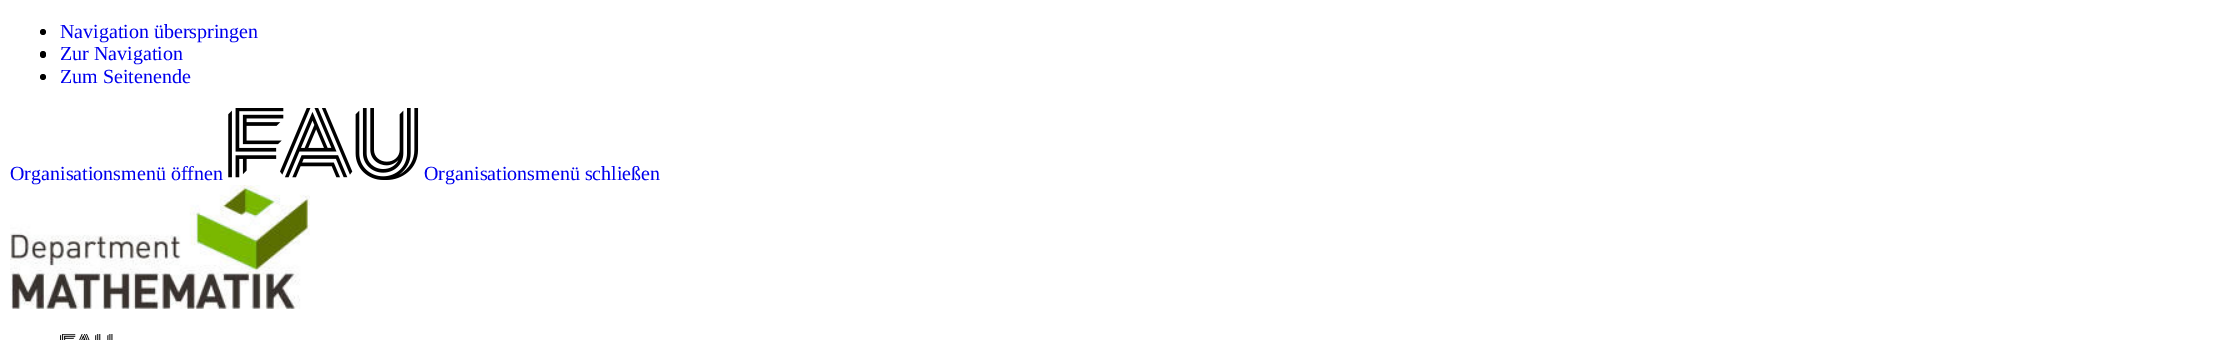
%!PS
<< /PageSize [2223 340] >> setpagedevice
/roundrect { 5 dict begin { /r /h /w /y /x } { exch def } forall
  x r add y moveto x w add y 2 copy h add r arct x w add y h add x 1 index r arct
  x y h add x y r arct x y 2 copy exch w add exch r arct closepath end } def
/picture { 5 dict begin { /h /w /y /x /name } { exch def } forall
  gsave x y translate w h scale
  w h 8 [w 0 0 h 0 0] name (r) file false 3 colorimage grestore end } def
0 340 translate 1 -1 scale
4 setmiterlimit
1 setgray
0 0 2223 340 rectfill
0 setgray
newpath 43 32 3 0 360 arc closepath fill
/LiberationSerif-Regular [20 0 0 -20 0 0] selectfont
0 0 0.933 setrgbcolor
60 38 moveto (Navigation überspringen) show
0 setgray
40 51 6 7 3 roundrect fill
0 0 0.933 setrgbcolor
60 60 moveto (Zur Navigation) show
0 setgray
newpath 43 77 3 0 360 arc closepath fill
0 0 0.933 setrgbcolor
60 83 moveto (Zum Seitenende) show
10 180 moveto (Organisationsmenü öffnen) show
(img1.rgb) 228 108 191 72 picture
424 180 moveto (Organisationsmenü schließen) show
(img2.rgb) 10 185 300 124 picture
(img3.rgb) 60 334 53 6 picture
showpage
